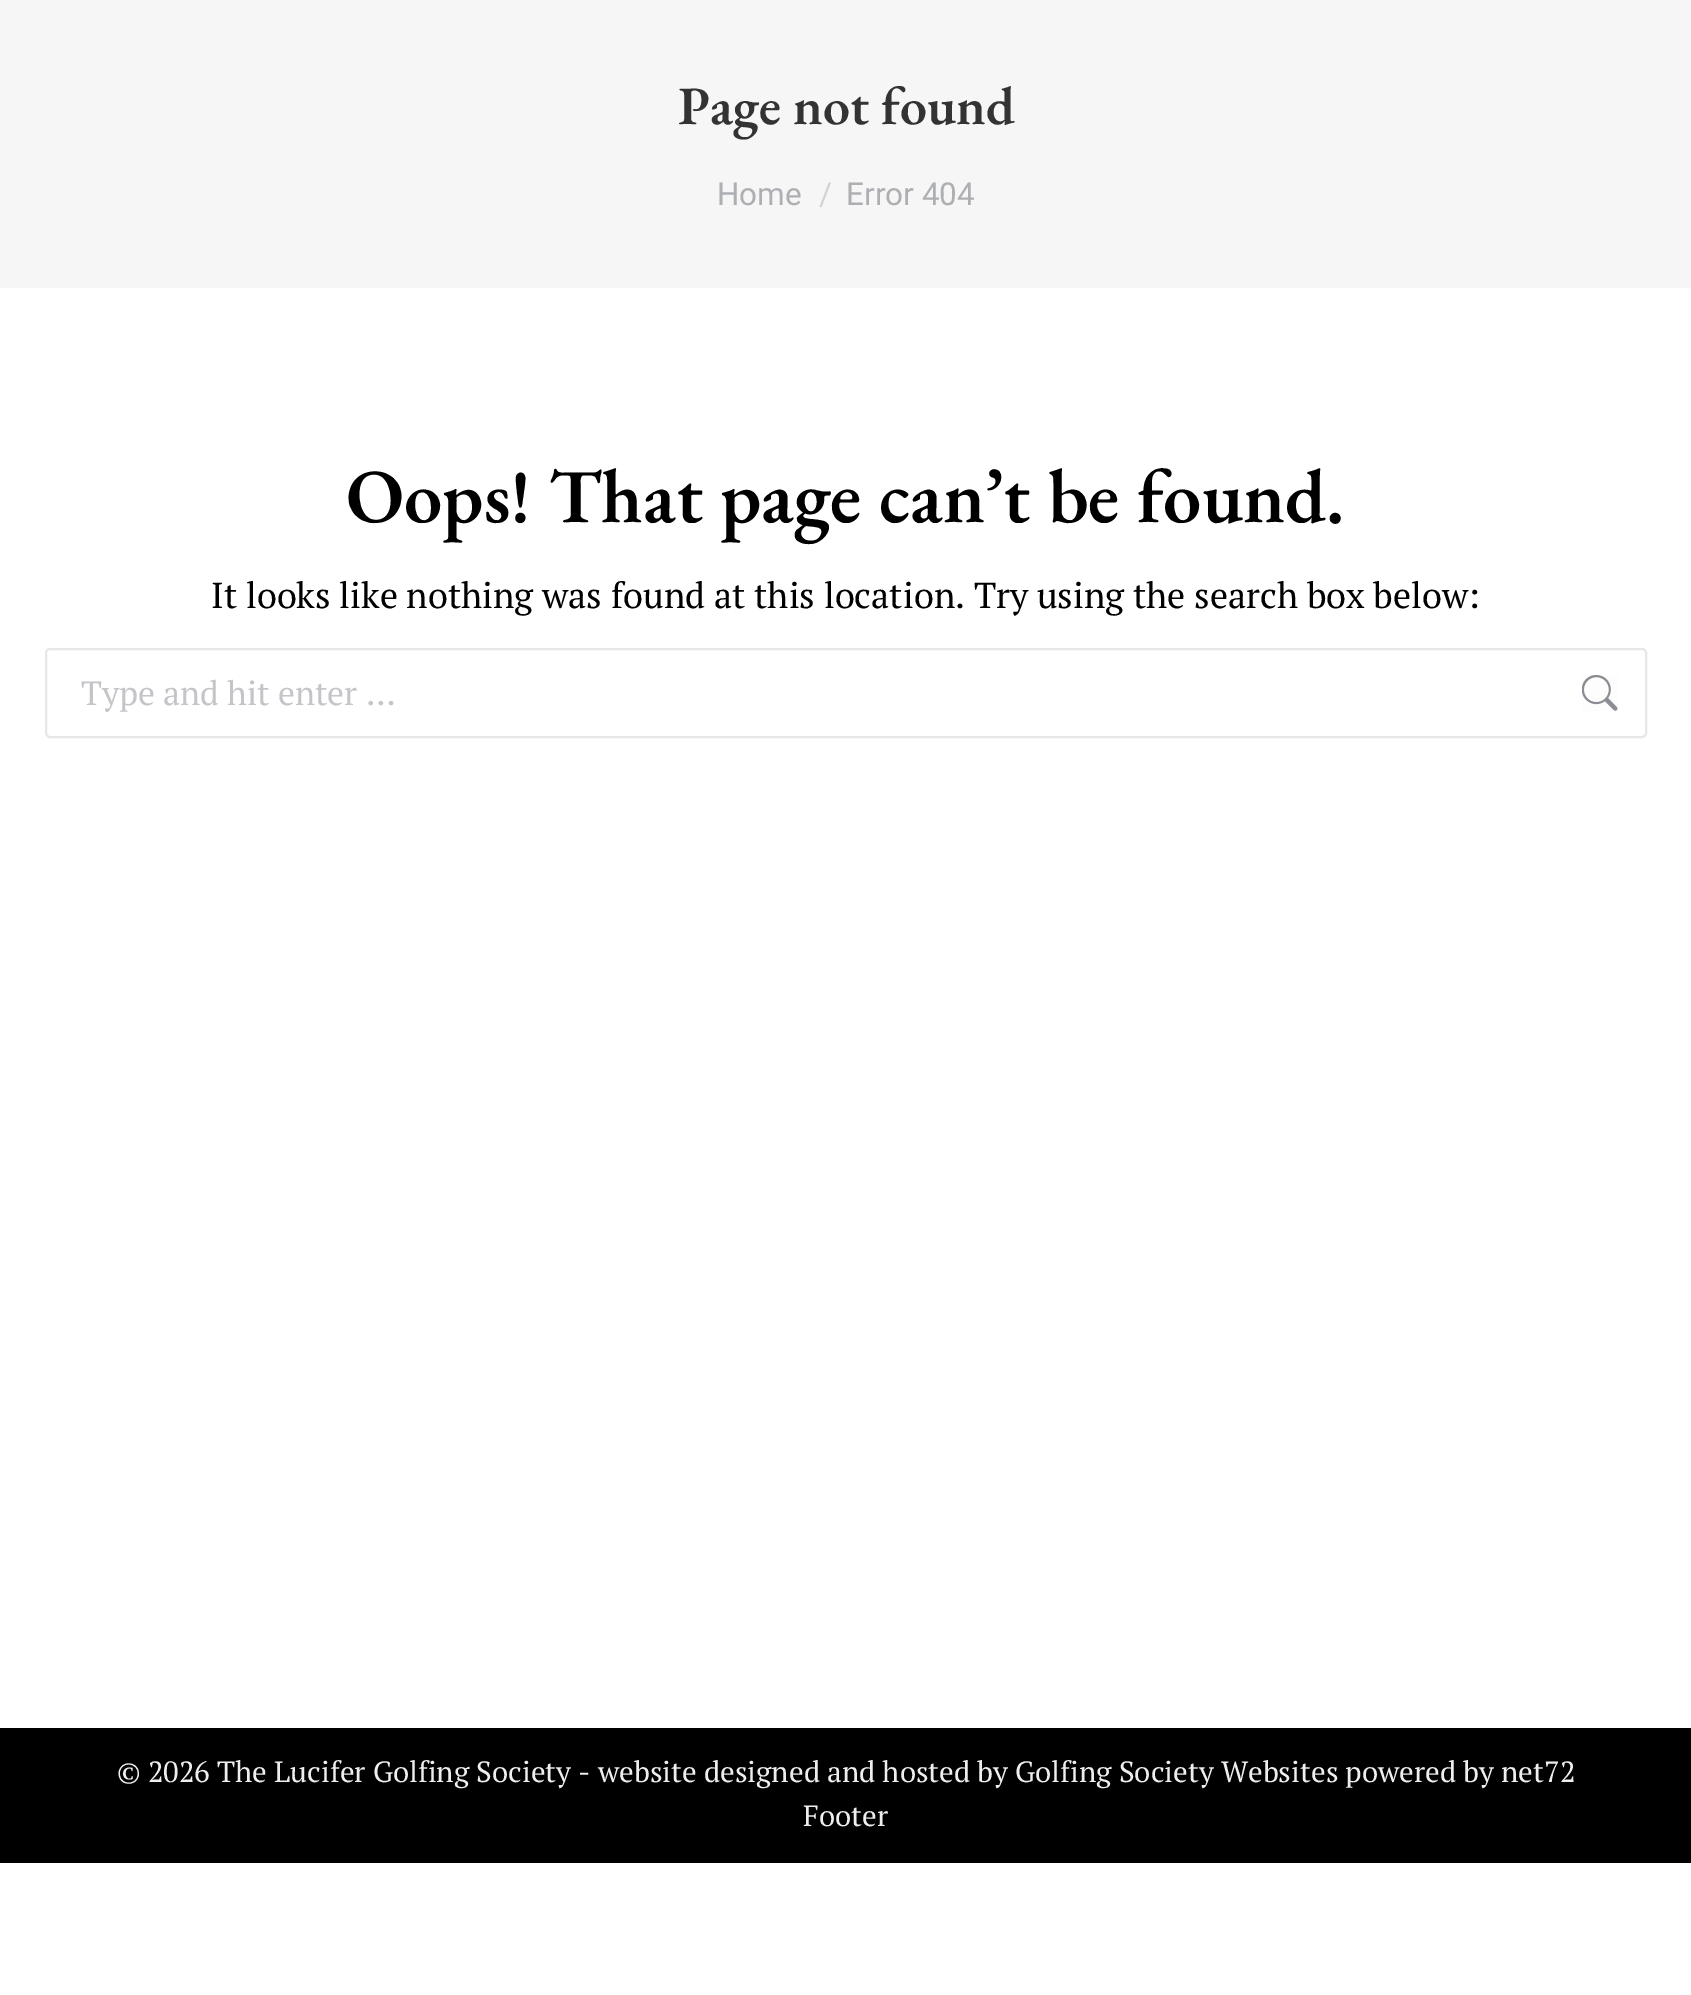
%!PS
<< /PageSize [1691 1995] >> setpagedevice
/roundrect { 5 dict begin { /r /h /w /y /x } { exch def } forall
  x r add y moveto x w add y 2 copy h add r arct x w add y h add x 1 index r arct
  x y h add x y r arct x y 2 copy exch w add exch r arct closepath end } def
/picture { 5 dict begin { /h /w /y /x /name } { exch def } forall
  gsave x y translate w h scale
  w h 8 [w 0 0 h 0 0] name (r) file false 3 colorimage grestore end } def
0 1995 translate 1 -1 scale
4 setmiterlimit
1 setgray
0 0 1691 1995 rectfill
0.965 setgray
0 0 1691 288 rectfill
/EBGaramond-SemiBold [54 0 0 -54 0 0] selectfont
0.2 setgray
678 124 moveto (Page not found) show
/Roboto-Regular [31.5 0 0 -31.5 0 0] selectfont
0.678 0.686 0.702 setrgbcolor
717 205 moveto (Home) show
0.824 0.827 0.835 setrgbcolor
819 205 moveto (/) show
0.678 0.686 0.702 setrgbcolor
846 205 moveto (Error 404) show
/EBGaramond-SemiBold [76.5 0 0 -76.5 0 0] selectfont
0 setgray
346 522 moveto (Oops! That page can’t be found.) show
/PTSerif-Regular [36 0 0 -36 0 0] selectfont
211 608 moveto (It looks like nothing was found at this location. Try using the search box below:) show
0.906 setgray
2 setlinewidth
46 649 1600 88 4 roundrect stroke
/PTSerif-Regular [33.75 0 0 -33.75 0 0] selectfont
0.769 0.773 0.788 setrgbcolor
81 705 moveto (Type and hit enter …) show
(img1.rgb) 1582 675 36 36 picture
0 setgray
0 1728 1691 135 rectfill
/PTSerif-Regular [29.25 0 0 -29.25 0 0] selectfont
0.933 setgray
117 1782 moveto (© 2026 The Lucifer Golfing Society - website designed and hosted by Golfing Society Websites powered by net72) show
803 1826 moveto (Footer) show
showpage
